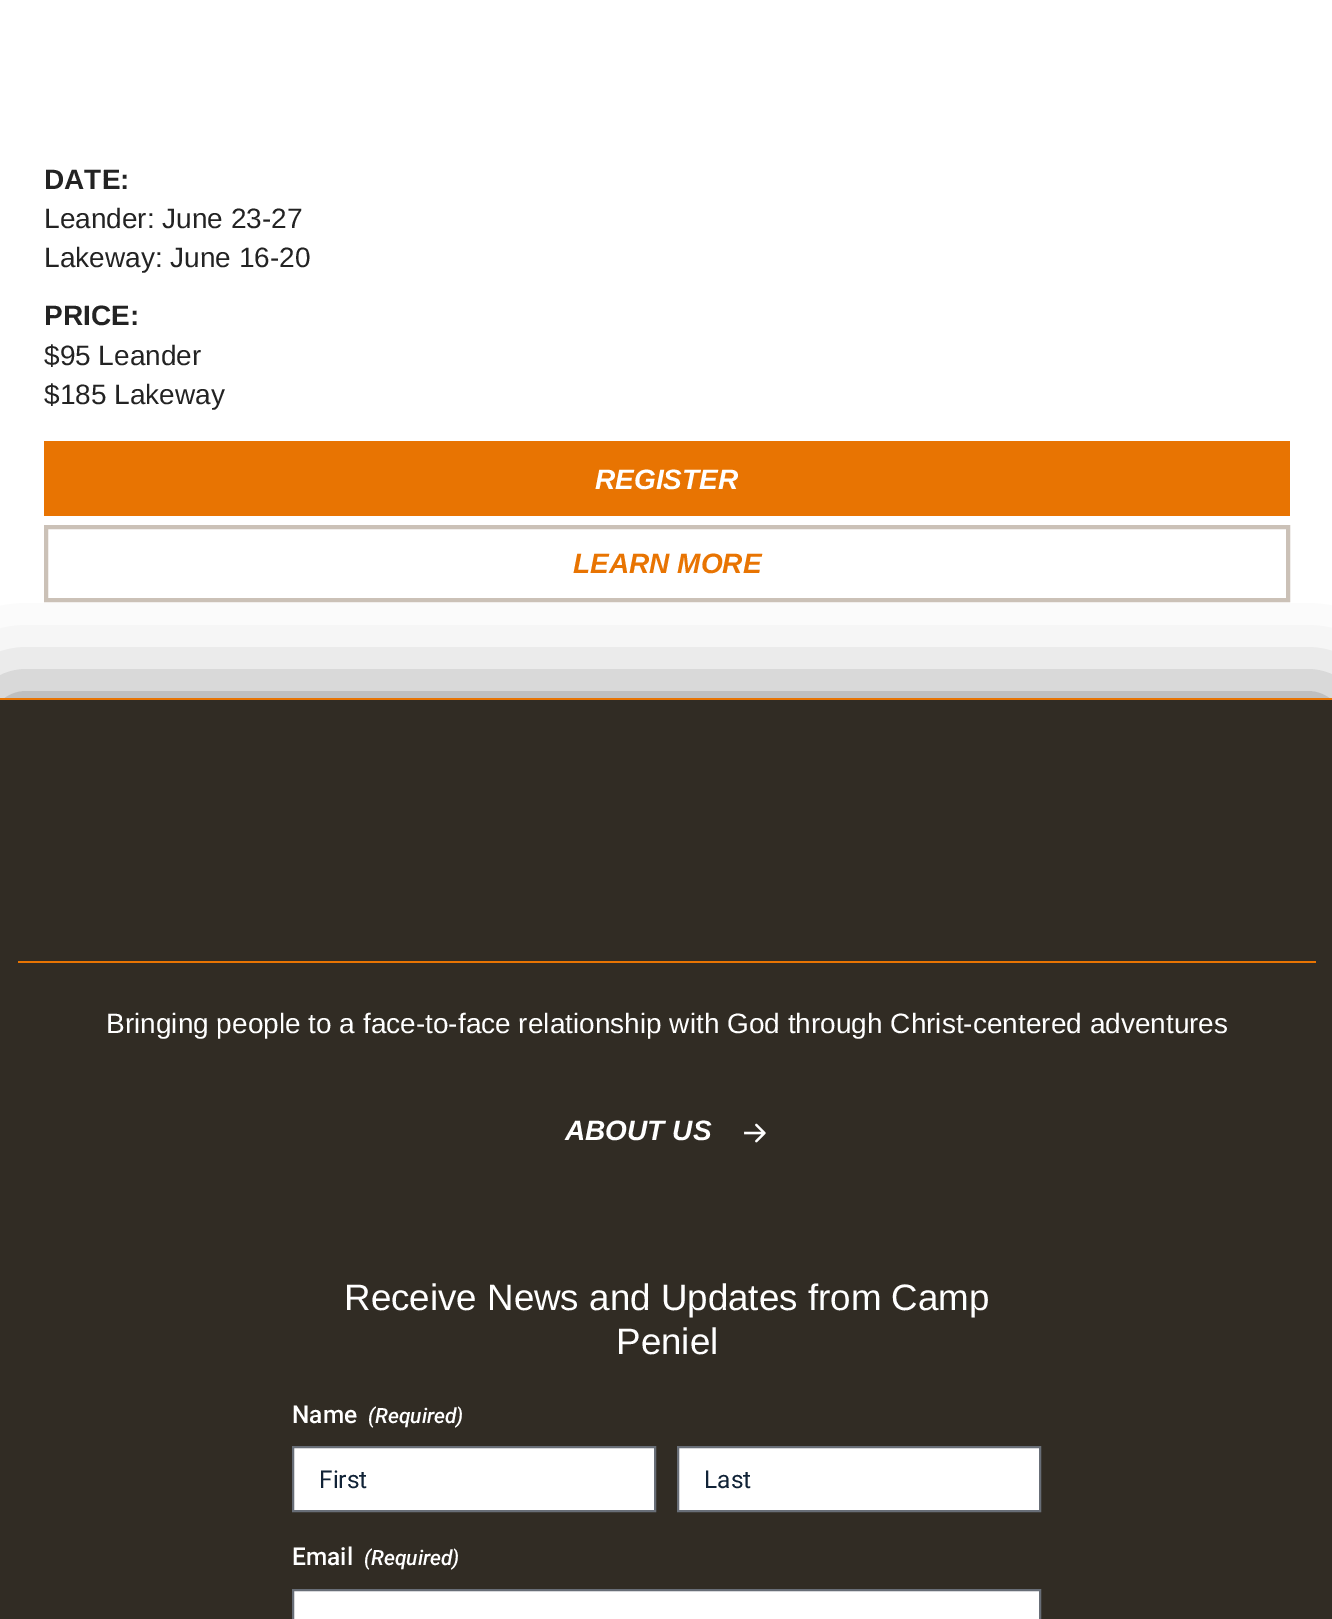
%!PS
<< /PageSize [1332 1619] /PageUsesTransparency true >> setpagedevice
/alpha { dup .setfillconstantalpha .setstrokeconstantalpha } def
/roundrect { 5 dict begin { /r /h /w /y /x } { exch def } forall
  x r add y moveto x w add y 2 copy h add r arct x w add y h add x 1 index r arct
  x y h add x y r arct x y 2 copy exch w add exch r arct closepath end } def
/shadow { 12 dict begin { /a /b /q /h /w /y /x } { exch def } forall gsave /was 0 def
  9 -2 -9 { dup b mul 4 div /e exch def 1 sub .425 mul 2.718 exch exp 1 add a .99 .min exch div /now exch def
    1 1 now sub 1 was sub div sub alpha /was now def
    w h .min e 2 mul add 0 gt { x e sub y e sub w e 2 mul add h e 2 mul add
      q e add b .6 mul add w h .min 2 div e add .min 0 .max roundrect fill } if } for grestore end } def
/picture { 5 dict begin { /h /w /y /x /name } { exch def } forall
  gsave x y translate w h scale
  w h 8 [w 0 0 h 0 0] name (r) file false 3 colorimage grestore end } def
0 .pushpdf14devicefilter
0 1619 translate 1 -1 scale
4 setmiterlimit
1 setgray
0 0 1332 1619 rectfill
/LiberationSans-Bold [28 0 0 -28 0 0] selectfont
0.137 setgray
44 189 moveto (DATE:) show
/LiberationSans-Regular [28 0 0 -28 0 0] selectfont
44 228 moveto (Leander: June 23-27) show
44 267 moveto (Lakeway: June 16-20) show
/LiberationSans-Bold [28 0 0 -28 0 0] selectfont
44 325 moveto (PRICE:) show
/LiberationSans-Regular [28 0 0 -28 0 0] selectfont
44 365 moveto ($95 Leander) show
44 404 moveto ($185 Lakeway) show
0.91 0.455 0.008 setrgbcolor
44 441 1246 75 rectfill
/LiberationSans-BoldItalic [28 0 0 -28 0 0] selectfont
1 setgray
595 489 moveto (REGISTER) show
0.796 0.757 0.718 setrgbcolor
4 setlinewidth
46 527 1242 73 rectstroke
0.91 0.455 0.008 setrgbcolor
573 573 moveto (LEARN MORE) show
0 setgray
0 702 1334 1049 0 44 0.5 shadow
0.91 0.455 0.008 setrgbcolor
0 698 1332 2 rectfill
0.192 0.173 0.141 setrgbcolor
0 700 1332 919 rectfill
0.91 0.455 0.008 setrgbcolor
18 961 1298 2 rectfill
/LiberationSans-Regular [28 0 0 -28 0 0] selectfont
1 setgray
106 1033 moveto (Bringing people to a face-to-face relationship with God through Christ-centered adventures) show
/LiberationSans-BoldItalic [28 0 0 -28 0 0] selectfont
565 1140 moveto (ABOUT US) show
(img1.rgb) 744 1123 22 20 picture
/LiberationSans-Regular [36.75 0 0 -36.75 0 0] selectfont
344 1310 moveto (Receive News and Updates from Camp) show
616 1354 moveto (Peniel) show
/Roboto-Medium [24.5 0 0 -24.5 0 0] selectfont
292 1423 moveto (Name) show
/Roboto-MediumItalic [21 0 0 -21 0 0] selectfont
368 1423 moveto (\(Required\)) show
newpath 293 1447 moveto 655 1447 lineto 655 1511 lineto 293 1511 lineto closepath gsave fill grestore
0.408 0.431 0.467 setrgbcolor
2 setlinewidth
stroke
/Roboto-Regular [24.5 0 0 -24.5 0 0] selectfont
0.067 0.137 0.216 setrgbcolor
319 1488 moveto (First) show
1 setgray
newpath 678 1447 moveto 1040 1447 lineto 1040 1511 lineto 678 1511 lineto closepath gsave fill grestore
0.408 0.431 0.467 setrgbcolor
stroke
0.067 0.137 0.216 setrgbcolor
704 1488 moveto (Last) show
/Roboto-Medium [24.5 0 0 -24.5 0 0] selectfont
1 setgray
292 1565 moveto (Email) show
/Roboto-MediumItalic [21 0 0 -21 0 0] selectfont
364 1565 moveto (\(Required\)) show
newpath 293 1590 moveto 1040 1590 lineto 1040 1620 lineto 293 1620 lineto closepath gsave fill grestore
0.408 0.431 0.467 setrgbcolor
stroke
.poppdf14devicefilter showpage
